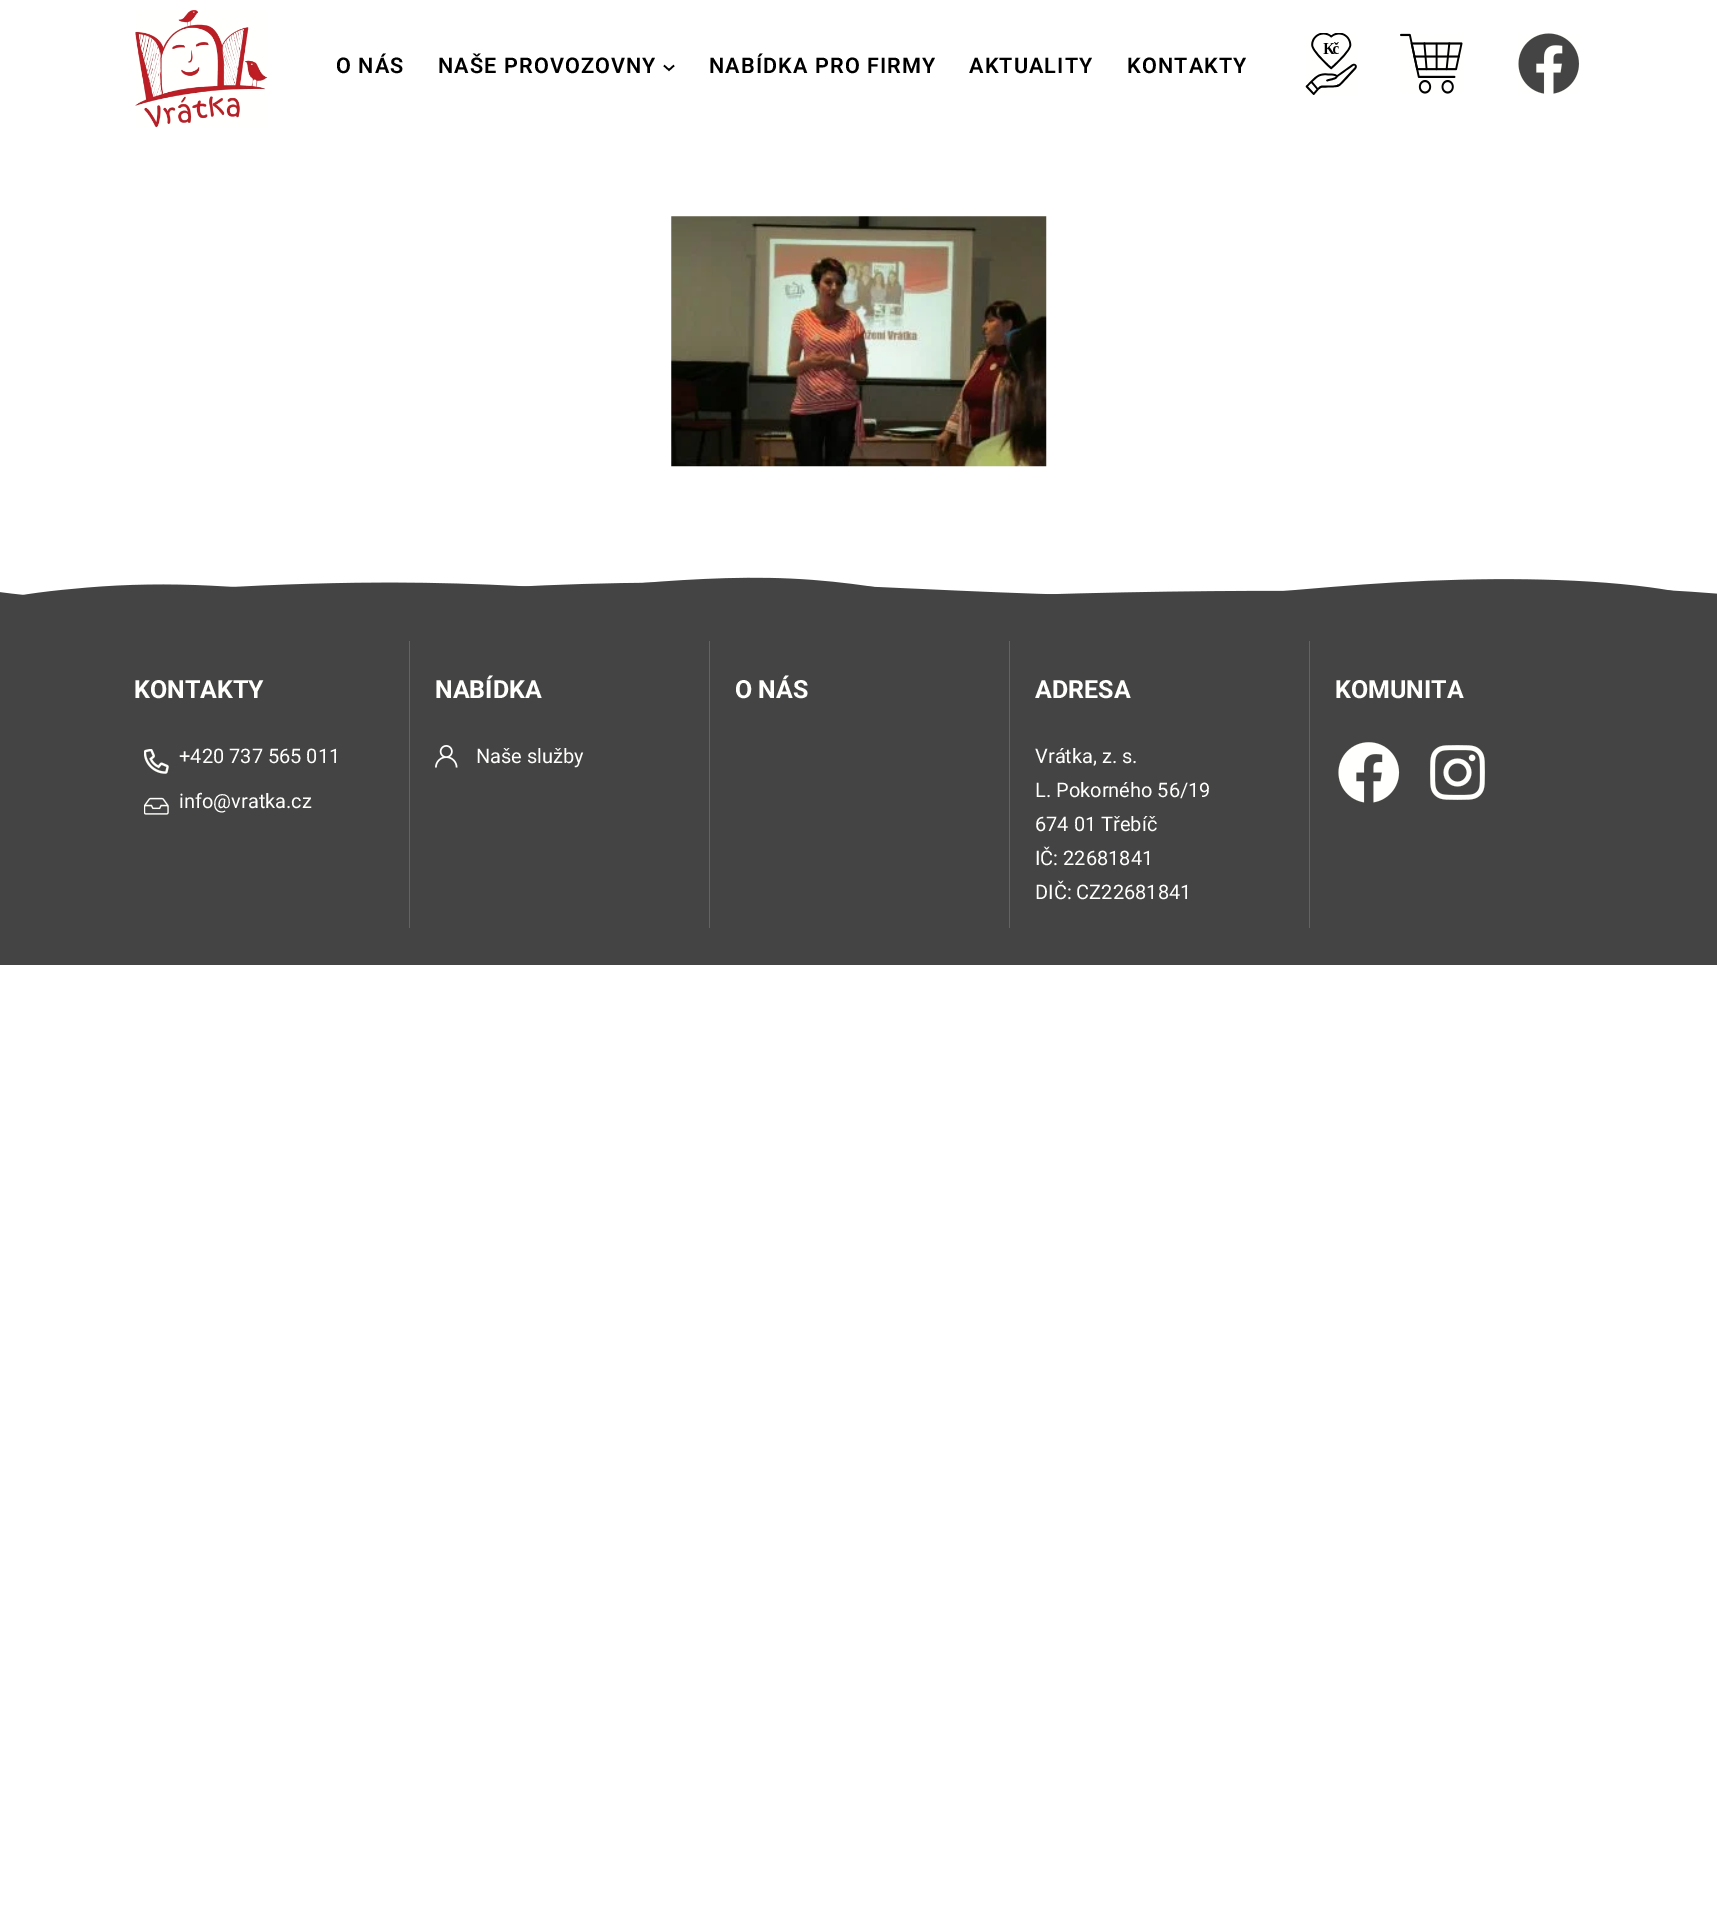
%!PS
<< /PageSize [1717 1932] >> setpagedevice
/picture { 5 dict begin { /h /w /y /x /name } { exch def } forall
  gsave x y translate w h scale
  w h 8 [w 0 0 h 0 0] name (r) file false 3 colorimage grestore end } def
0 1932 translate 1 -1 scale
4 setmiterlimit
1 setgray
0 0 1717 1932 rectfill
(img1.rgb) 135 10 133 118 picture
/Roboto-SemiBold [21.6 0 0 -21.6 0 0] selectfont
0 0 0.004 setrgbcolor
336 73 moveto 1.1 0 (O NÁS) ashow
438 73 moveto 1.1 0 (NAŠE PROVOZOVNY) ashow
1.6 setlinewidth
newpath 664 65.5 moveto 669 70 lineto 674 65.5 lineto stroke
709 73 moveto 1.1 0 (NABÍDKA PRO FIRMY) ashow
969 73 moveto 1.1 0 (AKTUALITY) ashow
1127 73 moveto 1.1 0 (KONTAKTY) ashow
(img2.rgb) 1305 33 52 62 picture
(img3.rgb) 1400 33 63 61 picture
(img4.rgb) 1518 33 62 61 picture
(img5.rgb) 671 216 376 251 picture
0.267 setgray
0 604 1717 361 rectfill
(img6.rgb) 0 577 1717 27 picture
/Roboto-Bold [25 0 0 -25 0 0] selectfont
1 1 0.992 setrgbcolor
134 698 moveto (KONTAKTY) show
(img7.rgb) 144 749 25 25 picture
/Roboto-Regular [20 0 0 -20 0 0] selectfont
179 763 moveto (+420 737 565 011) show
(img8.rgb) 144 797 25 18 picture
179 808 moveto (info@vratka.cz) show
0.376 0.392 0.416 setrgbcolor
409 641 1 287 rectfill
/Roboto-Bold [25 0 0 -25 0 0] selectfont
1 1 0.992 setrgbcolor
435 698 moveto (NABÍDKA) show
(img9.rgb) 435 745 23 23 picture
/Roboto-Regular [20 0 0 -20 0 0] selectfont
476 763 moveto (Naše služby) show
0.376 0.392 0.416 setrgbcolor
709 641 1 287 rectfill
/Roboto-Bold [25 0 0 -25 0 0] selectfont
1 1 0.992 setrgbcolor
735 698 moveto (O NÁS) show
0.376 0.392 0.416 setrgbcolor
1009 641 1 287 rectfill
1 1 0.992 setrgbcolor
1035 698 moveto (ADRESA) show
/Roboto-Regular [20 0 0 -20 0 0] selectfont
1035 763 moveto (Vrátka, z. s.) show
1035 797 moveto (L. Pokorného 56/19) show
1035 831 moveto (674 01 Třebíč) show
1035 865 moveto (IČ: 22681841) show
1035 899 moveto (DIČ: CZ22681841) show
0.376 0.392 0.416 setrgbcolor
1309 641 1 287 rectfill
/Roboto-Bold [25 0 0 -25 0 0] selectfont
1 1 0.992 setrgbcolor
1335 698 moveto (KOMUNITA) show
(img10.rgb) 1338 742 62 61 picture
(img11.rgb) 1430 745 55 55 picture
showpage
